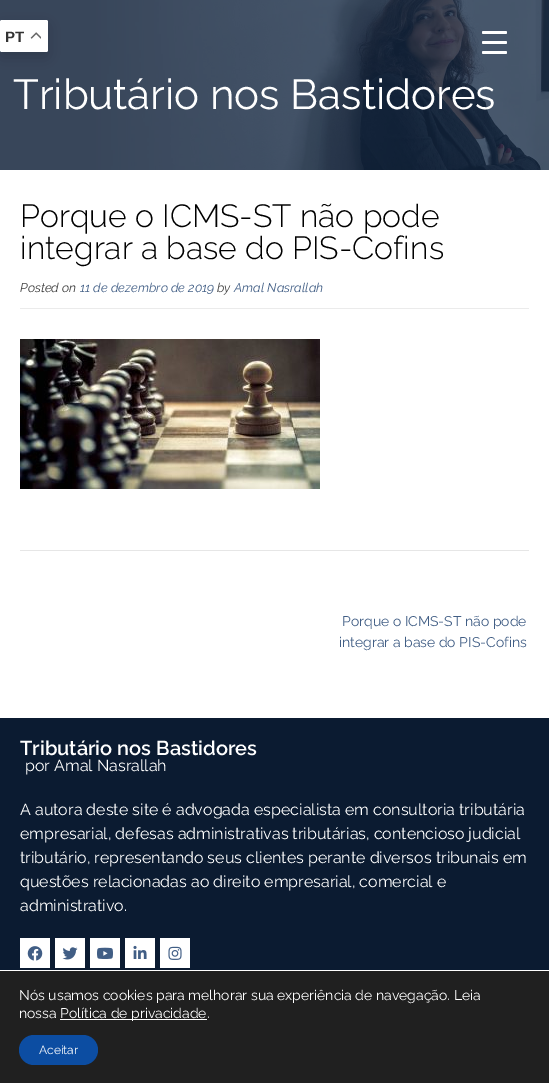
%!PS
<< /PageSize [549 1083] /PageUsesTransparency true >> setpagedevice
/alpha { dup .setfillconstantalpha .setstrokeconstantalpha } def
/roundrect { 5 dict begin { /r /h /w /y /x } { exch def } forall
  x r add y moveto x w add y 2 copy h add r arct x w add y h add x 1 index r arct
  x y h add x y r arct x y 2 copy exch w add exch r arct closepath end } def
/shadow { 12 dict begin { /a /b /q /h /w /y /x } { exch def } forall gsave /was 0 def
  9 -2 -9 { dup b mul 4 div /e exch def 1 sub .425 mul 2.718 exch exp 1 add a .99 .min exch div /now exch def
    1 1 now sub 1 was sub div sub alpha /was now def
    w h .min e 2 mul add 0 gt { x e sub y e sub w e 2 mul add h e 2 mul add
      q e add b .6 mul add w h .min 2 div e add .min 0 .max roundrect fill } if } for grestore end } def
/picture { 5 dict begin { /h /w /y /x /name } { exch def } forall
  gsave x y translate w h scale
  w h 8 [w 0 0 h 0 0] name (r) file false 3 colorimage grestore end } def
0 .pushpdf14devicefilter
0 1083 translate 1 -1 scale
4 setmiterlimit
1 setgray
0 0 549 1083 rectfill
(img2.rgb) 0 0 549 170 picture
0 setgray
0 25 48 32 2 7.5 0.15 shadow
1 setgray
0 20 48 32 2 roundrect fill
/LiberationSans-Bold [15 0 0 -15 0 0] selectfont
0.2 setgray
5 42 moveto (PT) show
(img1.rgb) 30 32 11 7 picture
/Raleway-Regular [42 0 0 -42 0 0] selectfont
1 setgray
13 109 moveto (Tributário nos Bastidores) show
0.902 setgray
20 550 509 1 rectfill
0.922 setgray
20 308 509 1 rectfill
/Raleway-Light [32 0 0 -32 0 0] selectfont
0 setgray
20 227 moveto (Porque o ICMS-ST não pode) show
20 259 moveto (integrar a base do PIS-Cofins) show
/Raleway-Italic [12.6 0 0 -12.6 0 0] selectfont
0.235 setgray
20 292 moveto (Posted on) show
0.255 0.369 0.522 setrgbcolor
80 292 moveto (11 de dezembro de 2019) show
0.235 setgray
217 292 moveto (by) show
0.255 0.369 0.522 setrgbcolor
234 292 moveto (Amal Nasrallah) show
(img3.rgb) 20 339 300 150 picture
/Raleway-Regular [14 0 0 -14 0 0] selectfont
342 626 moveto (Porque o ICMS-ST não pode) show
339 647 moveto (integrar a base do PIS-Cofins) show
0.043 0.106 0.192 setrgbcolor
0 718 549 252 rectfill
/Raleway-SemiBold [20 0 0 -20 0 0] selectfont
1 setgray
20 755 moveto (Tributário nos Bastidores) show
/Raleway-Regular [16 0 0 -16 0 0] selectfont
25 771 moveto (por Amal Nasrallah) show
20 815 moveto (A autora deste site é advogada especialista em consultoria tributária) show
20 839 moveto (empresarial, defesas administrativas tributárias, contencioso judicial) show
20 863 moveto (tributário, representando seus clientes perante diversos tribunais em) show
20 887 moveto (questões relacionadas ao direito empresarial, comercial e) show
20 911 moveto (administrativo.) show
20 938 30 30 rectfill
(img4.rgb) 27 946 16 15 picture
55 938 30 30 rectfill
(img5.rgb) 62 947 16 13 picture
90 938 30 30 rectfill
(img6.rgb) 97 947 16 12 picture
125 938 30 30 rectfill
(img7.rgb) 133 945 14 14 picture
160 938 30 30 rectfill
(img8.rgb) 168 946 14 14 picture
482 41 25 3 1.5 roundrect fill
482 31 25 3 1.5 roundrect fill
482 51 25 3 1.5 roundrect fill
0.125 setgray
0 971 549 112 rectfill
/Raleway-Regular [14 0 0 -14 0 0] selectfont
1 setgray
19 1000 moveto (Nós usamos cookies para melhorar sua experiência de navegação. Leia) show
19 1018 moveto (nossa) show
60 1019 147 1 rectfill
60 1018 moveto (Política de privacidade.) show
0.047 0.302 0.635 setrgbcolor
19 1035 79 30 15 roundrect fill
/Raleway-Regular [12 0 0 -12 0 0] selectfont
1 setgray
39 1054 moveto (Aceitar) show
.poppdf14devicefilter showpage
